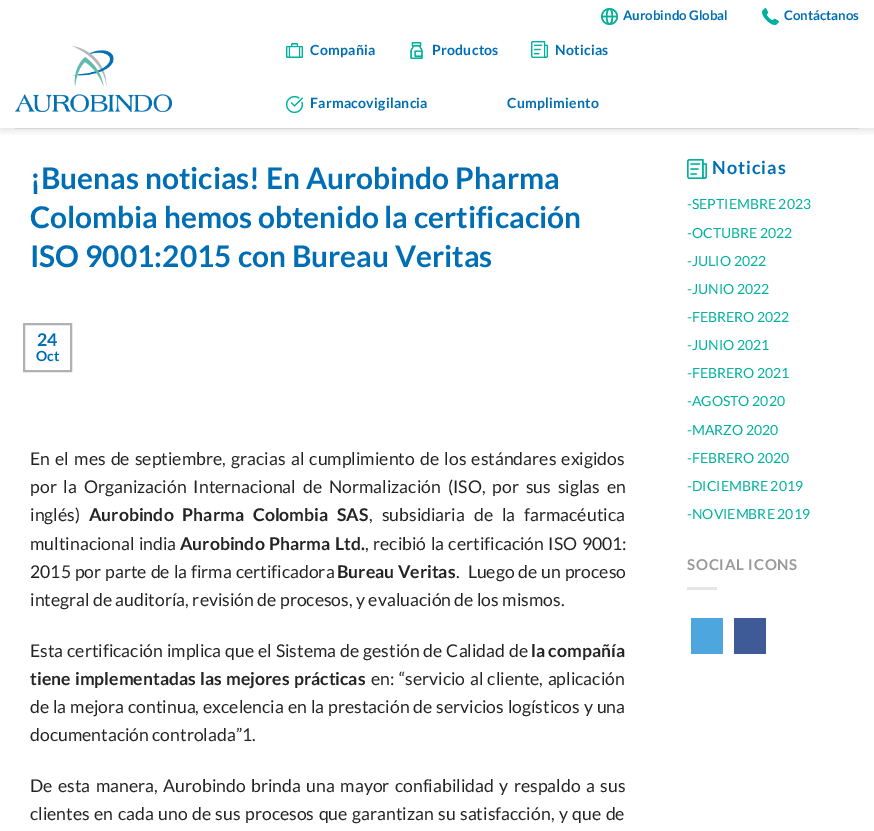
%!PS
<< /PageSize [874 831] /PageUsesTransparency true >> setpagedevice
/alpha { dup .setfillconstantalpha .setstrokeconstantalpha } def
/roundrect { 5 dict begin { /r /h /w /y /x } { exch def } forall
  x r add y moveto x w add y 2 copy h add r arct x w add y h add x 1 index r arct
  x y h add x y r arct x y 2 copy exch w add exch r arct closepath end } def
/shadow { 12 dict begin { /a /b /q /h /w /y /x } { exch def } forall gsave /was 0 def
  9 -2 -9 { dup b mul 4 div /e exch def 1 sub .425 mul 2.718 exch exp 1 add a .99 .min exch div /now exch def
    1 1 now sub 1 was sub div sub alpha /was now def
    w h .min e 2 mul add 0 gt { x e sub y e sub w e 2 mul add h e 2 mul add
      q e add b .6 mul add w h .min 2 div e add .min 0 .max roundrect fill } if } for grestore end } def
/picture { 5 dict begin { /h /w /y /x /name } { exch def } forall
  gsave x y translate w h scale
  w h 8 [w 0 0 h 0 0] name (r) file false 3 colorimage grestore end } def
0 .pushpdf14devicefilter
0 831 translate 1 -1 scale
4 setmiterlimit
1 setgray
0 0 874 831 rectfill
gsave
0 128 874 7 rectclip
0 setgray
1 1 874 128 0 5 0.15 shadow
grestore
(img1.rgb) 601 8 17 17 picture
/Lato-Bold [13.25 0 0 -13.25 0 0] selectfont
0 0.431 0.706 setrgbcolor
623 20 moveto (Aurobindo Global) show
(img2.rgb) 762 8 17 17 picture
784 20 moveto (Contáctanos) show
(img3.rgb) 15 46 157 66 picture
(img4.rgb) 286 42 17 17 picture
/Lato-Bold [14 0 0 -14 0 0] selectfont
310 55 moveto 0.25 0 (Compañia) ashow
(img5.rgb) 410 42 13 17 picture
432 55 moveto 0.25 0 (Productos) ashow
(img6.rgb) 531 41 17 17 picture
555 55 moveto 0.25 0 (Noticias) ashow
(img7.rgb) 286 96 17 17 picture
310 108 moveto 0.25 0 (Farmacovigilancia) ashow
507 108 moveto 0.25 0 (Cumplimiento) ashow
0.843 setgray
15 128 844 1 rectfill
/Lato-Bold [29.9 0 0 -29.9 0 0] selectfont
0 0.431 0.706 setrgbcolor
30 189 moveto (¡Buenas noticias! En Aurobindo Pharma) show
30 228 moveto (Colombia hemos obtenido la certificación) show
30 267 moveto (ISO 9001:2015 con Bureau Veritas) show
0.694 setgray
2 setlinewidth
24 324 47 47 rectstroke
/Lato-Bold [17.6 0 0 -17.6 0 0] selectfont
0 0.431 0.706 setrgbcolor
37 346 moveto (24) show
/Lato-Bold [14 0 0 -14 0 0] selectfont
36 361 moveto (Oct) show
/Lato-Regular [17.6 0 0 -17.6 0 0] selectfont
0.141 setgray
30 465 moveto 1.8 0 32 (En el mes de septiembre, gracias al cumplimiento de los estándares exigidos) widthshow
30 493 moveto 3.5 0 32 (por la Organización Internacional de Normalización \(ISO, por sus siglas en) widthshow
30 521 moveto (inglés\)) show
/Lato-Bold [17.6 0 0 -17.6 0 0] selectfont
89 521 moveto 5.5 0 32 (Aurobindo Pharma Colombia SAS) widthshow
/Lato-Regular [17.6 0 0 -17.6 0 0] selectfont
369 521 moveto 5.5 0 32 (, subsidiaria de la farmacéutica) widthshow
30 550 moveto 1 0 32 (multinacional india) widthshow
/Lato-Bold [17.6 0 0 -17.6 0 0] selectfont
180 550 moveto 1 0 32 (Aurobindo Pharma Ltd.) widthshow
/Lato-Regular [17.6 0 0 -17.6 0 0] selectfont
365 550 moveto 1 0 32 (, recibió la certificación ISO 9001:) widthshow
30 578 moveto 0.5 0 32 (2015 por parte de la firma certificadora) widthshow
/Lato-Bold [17.6 0 0 -17.6 0 0] selectfont
337 578 moveto (Bureau Veritas) show
/Lato-Regular [17.6 0 0 -17.6 0 0] selectfont
456 578 moveto 0.5 0 32 (.  Luego de un proceso) widthshow
30 606 moveto (integral de auditoría, revisión de procesos, y evaluación de los mismos.) show
30 657 moveto 0.5 0 32 (Esta certificación implica que el Sistema de gestión de Calidad de) widthshow
/Lato-Bold [17.6 0 0 -17.6 0 0] selectfont
531 657 moveto (la compañía) show
30 685 moveto 1 0 32 (tiene implementadas las mejores prácticas) widthshow
/Lato-Regular [17.6 0 0 -17.6 0 0] selectfont
371 685 moveto 1 0 32 (en: “servicio al cliente, aplicación) widthshow
30 713 moveto 0.5 0 32 (de la mejora continua, excelencia en la prestación de servicios logísticos y una) widthshow
30 741 moveto (documentación controlada”1.) show
30 792 moveto 2 0 32 (De esta manera, Aurobindo brinda una mayor confiabilidad y respaldo a sus) widthshow
30 820 moveto 1.1 0 32 (clientes en cada uno de sus procesos que garantizan su satisfacción, y que de) widthshow
(img8.rgb) 687 159 20 20 picture
/Lato-Bold [18 0 0 -18 0 0] selectfont
0 0.431 0.706 setrgbcolor
712 174 moveto 1 0 (Noticias) ashow
/Lato-Regular [14 0 0 -14 0 0] selectfont
0 0.698 0.616 setrgbcolor
687 209 moveto (-SEPTIEMBRE 2023) show
687 238 moveto (-OCTUBRE 2022) show
687 266 moveto (-JULIO 2022) show
687 294 moveto (-JUNIO 2022) show
687 322 moveto (-FEBRERO 2022) show
687 350 moveto (-JUNIO 2021) show
687 378 moveto (-FEBRERO 2021) show
687 406 moveto (-AGOSTO 2020) show
687 435 moveto (-MARZO 2020) show
687 463 moveto (-FEBRERO 2020) show
687 491 moveto (-DICIEMBRE 2019) show
687 519 moveto (-NOVIEMBRE 2019) show
/Lato-Bold [15 0 0 -15 0 0] selectfont
0.6 setgray
687 570 moveto 0.75 0 (SOCIAL ICONS) ashow
0.902 setgray
687 587 30 3 rectfill
0.302 0.655 0.871 setrgbcolor
691 618 32 36 rectfill
0.243 0.357 0.596 setrgbcolor
734 618 32 36 rectfill
.poppdf14devicefilter showpage
